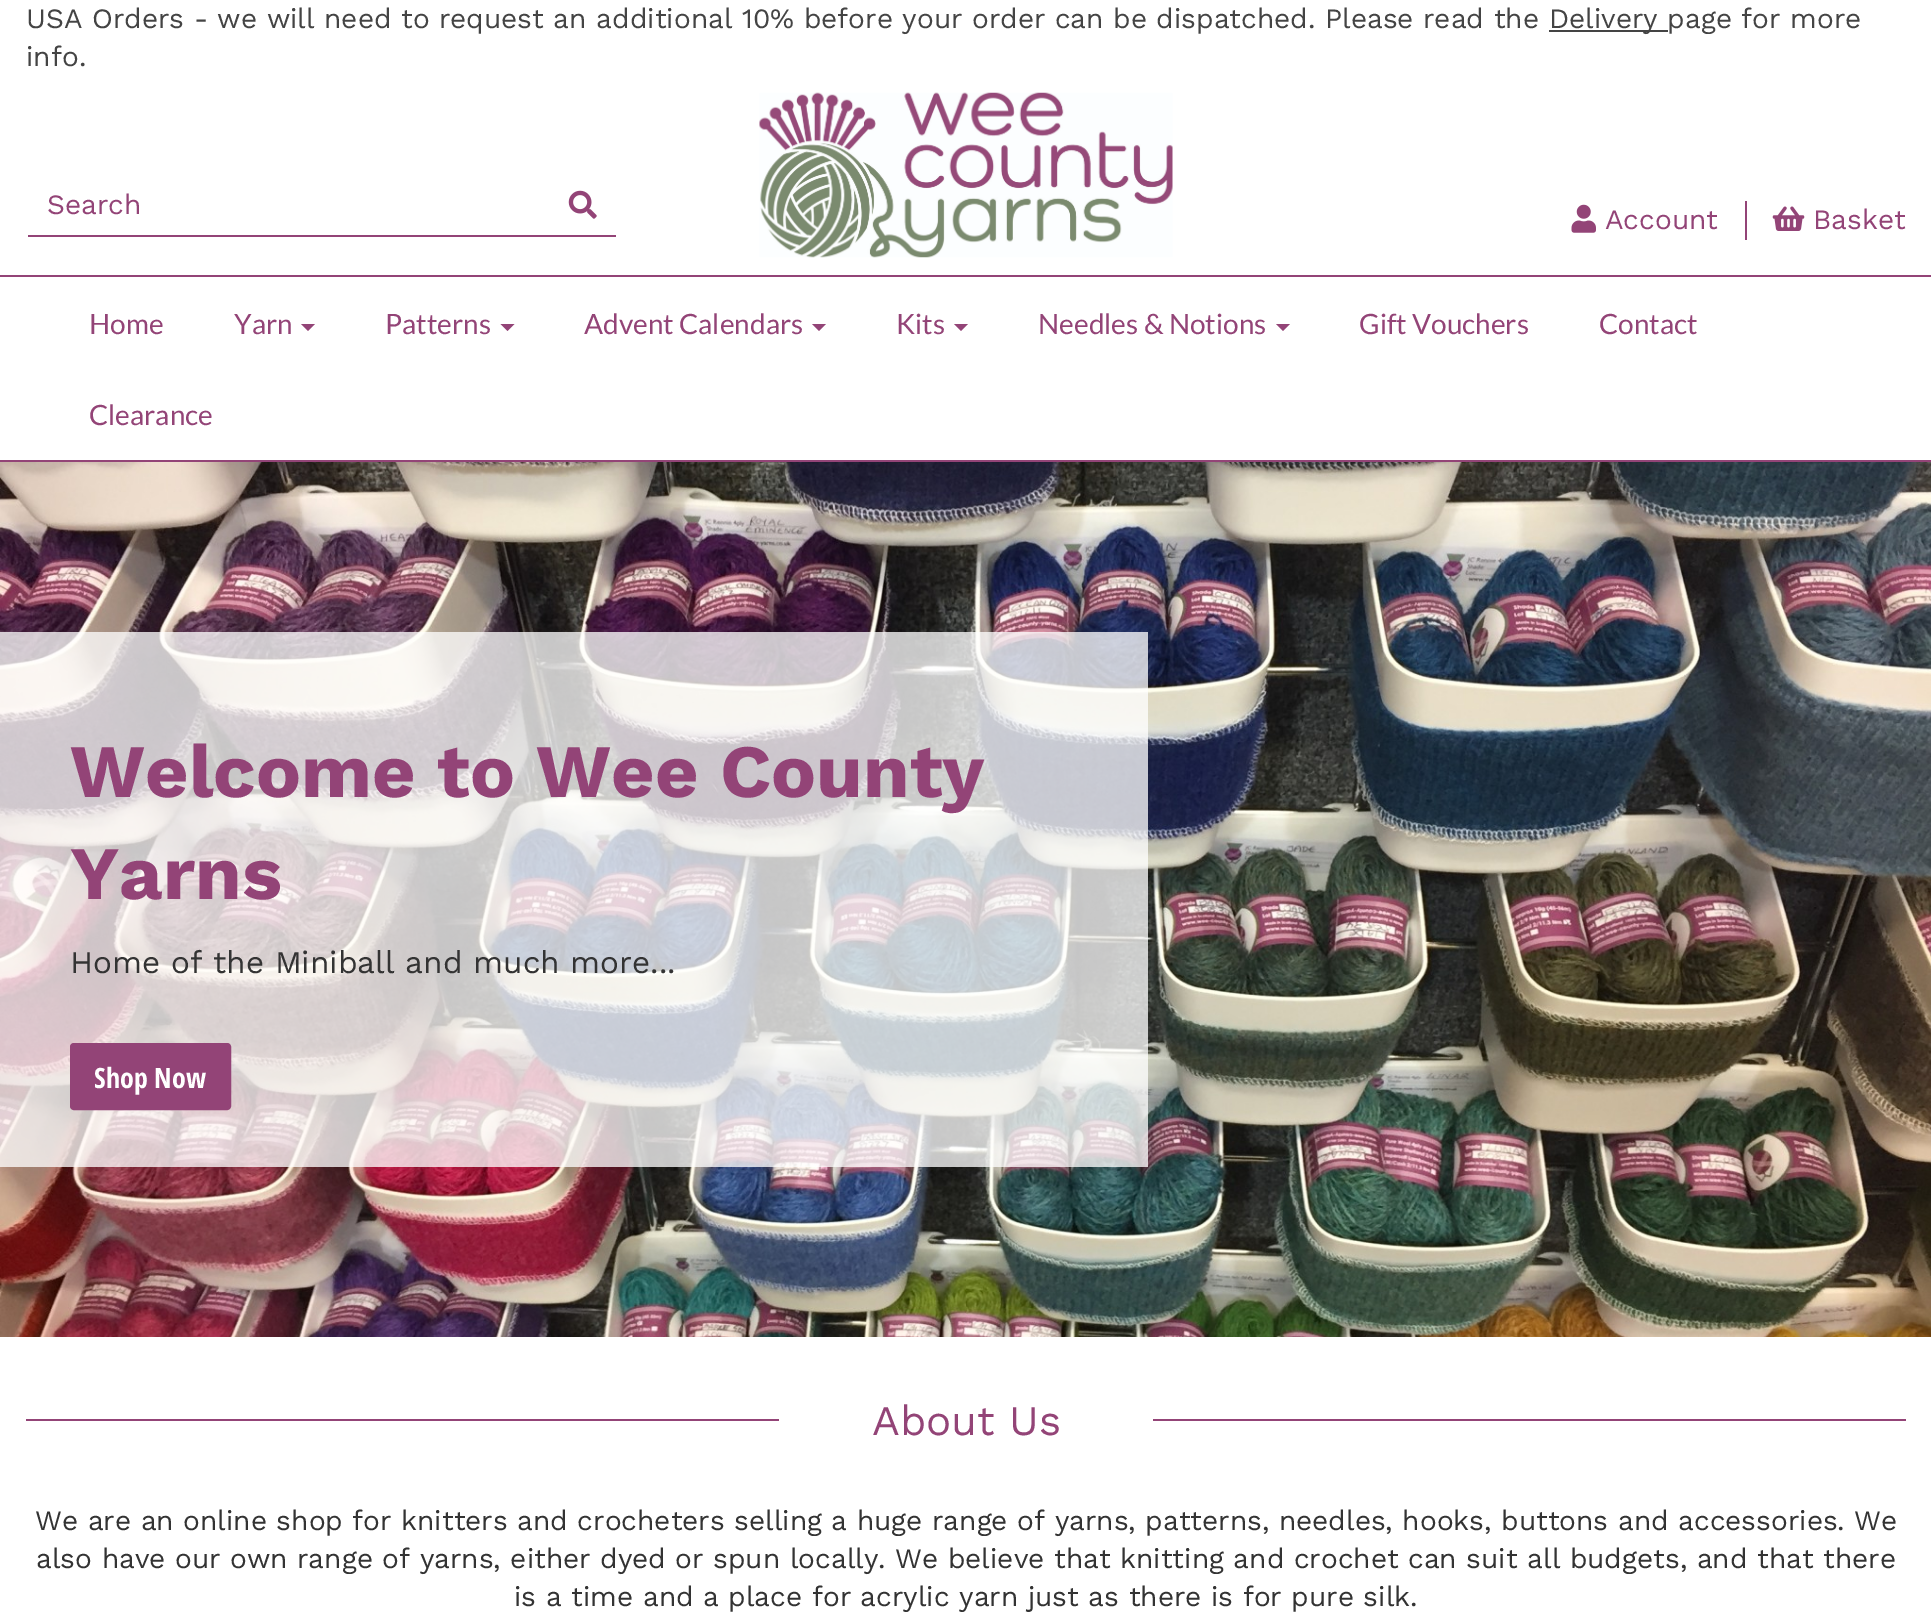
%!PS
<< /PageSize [1931 1612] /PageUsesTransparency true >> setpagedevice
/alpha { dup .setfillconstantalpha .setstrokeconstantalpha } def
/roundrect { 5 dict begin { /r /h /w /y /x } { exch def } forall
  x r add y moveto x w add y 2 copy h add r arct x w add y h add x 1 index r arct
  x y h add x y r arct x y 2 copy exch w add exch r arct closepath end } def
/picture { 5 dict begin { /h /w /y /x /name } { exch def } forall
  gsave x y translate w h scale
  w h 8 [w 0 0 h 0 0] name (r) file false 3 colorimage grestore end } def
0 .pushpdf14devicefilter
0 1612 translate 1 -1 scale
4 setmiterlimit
1 setgray
0 0 1931 1612 rectfill
/WorkSans-Regular [28 0 0 -28 0 0] selectfont
0.267 setgray
26 28 moveto (USA Orders - we will need to request an additional 10% before your order can be dispatched. Please read the) show
1549 30 119 2 rectfill
1549 28 moveto (Delivery page for more) show
26 66 moveto (info.) show
0.576 0.267 0.467 setrgbcolor
0 275 1931 2 rectfill
28 235 522 2 rectfill
47 214 moveto (Search) show
1 setgray
newpath 548 175 moveto 614 175 lineto 616 175 618 177 618 179 curveto 618 232 lineto 618 234 616 236 614 236 curveto 548 236 lineto closepath fill
0.576 0.267 0.467 setrgbcolor
548 235 68 2 rectfill
(img1.rgb) 568 190 29 29 picture
(img2.rgb) 759 92 414 166 picture
1745 201 2 39 rectfill
(img3.rgb) 1571 204 25 29 picture
1605 229 moveto (Account) show
(img4.rgb) 1772 206 33 25 picture
1813 229 moveto (Basket) show
0 460 1931 2 rectfill
/Lato-Regular [28 0 0 -28 0 0] selectfont
89 334 moveto (Home) show
234 334 moveto (Yarn) show
newpath 301 324 moveto 315 324 lineto 308 331 lineto closepath fill
385 334 moveto (Patterns) show
newpath 500.5 324 moveto 514.5 324 lineto 507.5 331 lineto closepath fill
584 334 moveto (Advent Calendars) show
newpath 812 324 moveto 826 324 lineto 819 331 lineto closepath fill
896 334 moveto (Kits) show
newpath 954 324 moveto 968 324 lineto 961 331 lineto closepath fill
1038 334 moveto (Needles & Notions) show
newpath 1276 324 moveto 1290 324 lineto 1283 331 lineto closepath fill
1359 334 moveto (Gift Vouchers) show
1599 334 moveto (Contact) show
89 425 moveto (Clearance) show
(img5.rgb) 0 462 1931 875 picture
0.76 alpha
1 setgray
0 632 1148 535 rectfill
/WorkSans-Bold [75.25 0 0 -75.25 0 0] selectfont
1 alpha
0.576 0.267 0.467 setrgbcolor
70 797 moveto (Welcome to Wee County) show
70 899 moveto (Yarns) show
/WorkSans-Regular [31.5 0 0 -31.5 0 0] selectfont
0.2 setgray
70 973 moveto (Home of the Miniball and much more...) show
0.576 0.267 0.467 setrgbcolor
72 1045 157 63 2 roundrect gsave fill grestore
4 setlinewidth
stroke
/OpenSansCondensed-Bold [28 0 0 -28 0 0] selectfont
1 setgray
94 1088 moveto (Shop Now) show
0.576 0.267 0.467 setrgbcolor
26 1419 753 2 rectfill
/WorkSans-Regular [42 0 0 -42 0 0] selectfont
872 1435 moveto (About Us) show
1153 1419 753 2 rectfill
/WorkSans-Regular [28 0 0 -28 0 0] selectfont
0.2 setgray
35 1530 moveto (We are an online shop for knitters and crocheters selling a huge range of yarns, patterns, needles, hooks, buttons and accessories. We) show
36 1568 moveto (also have our own range of yarns, either dyed or spun locally. We believe that knitting and crochet can suit all budgets, and that there) show
514 1606 moveto (is a time and a place for acrylic yarn just as there is for pure silk.) show
.poppdf14devicefilter showpage
